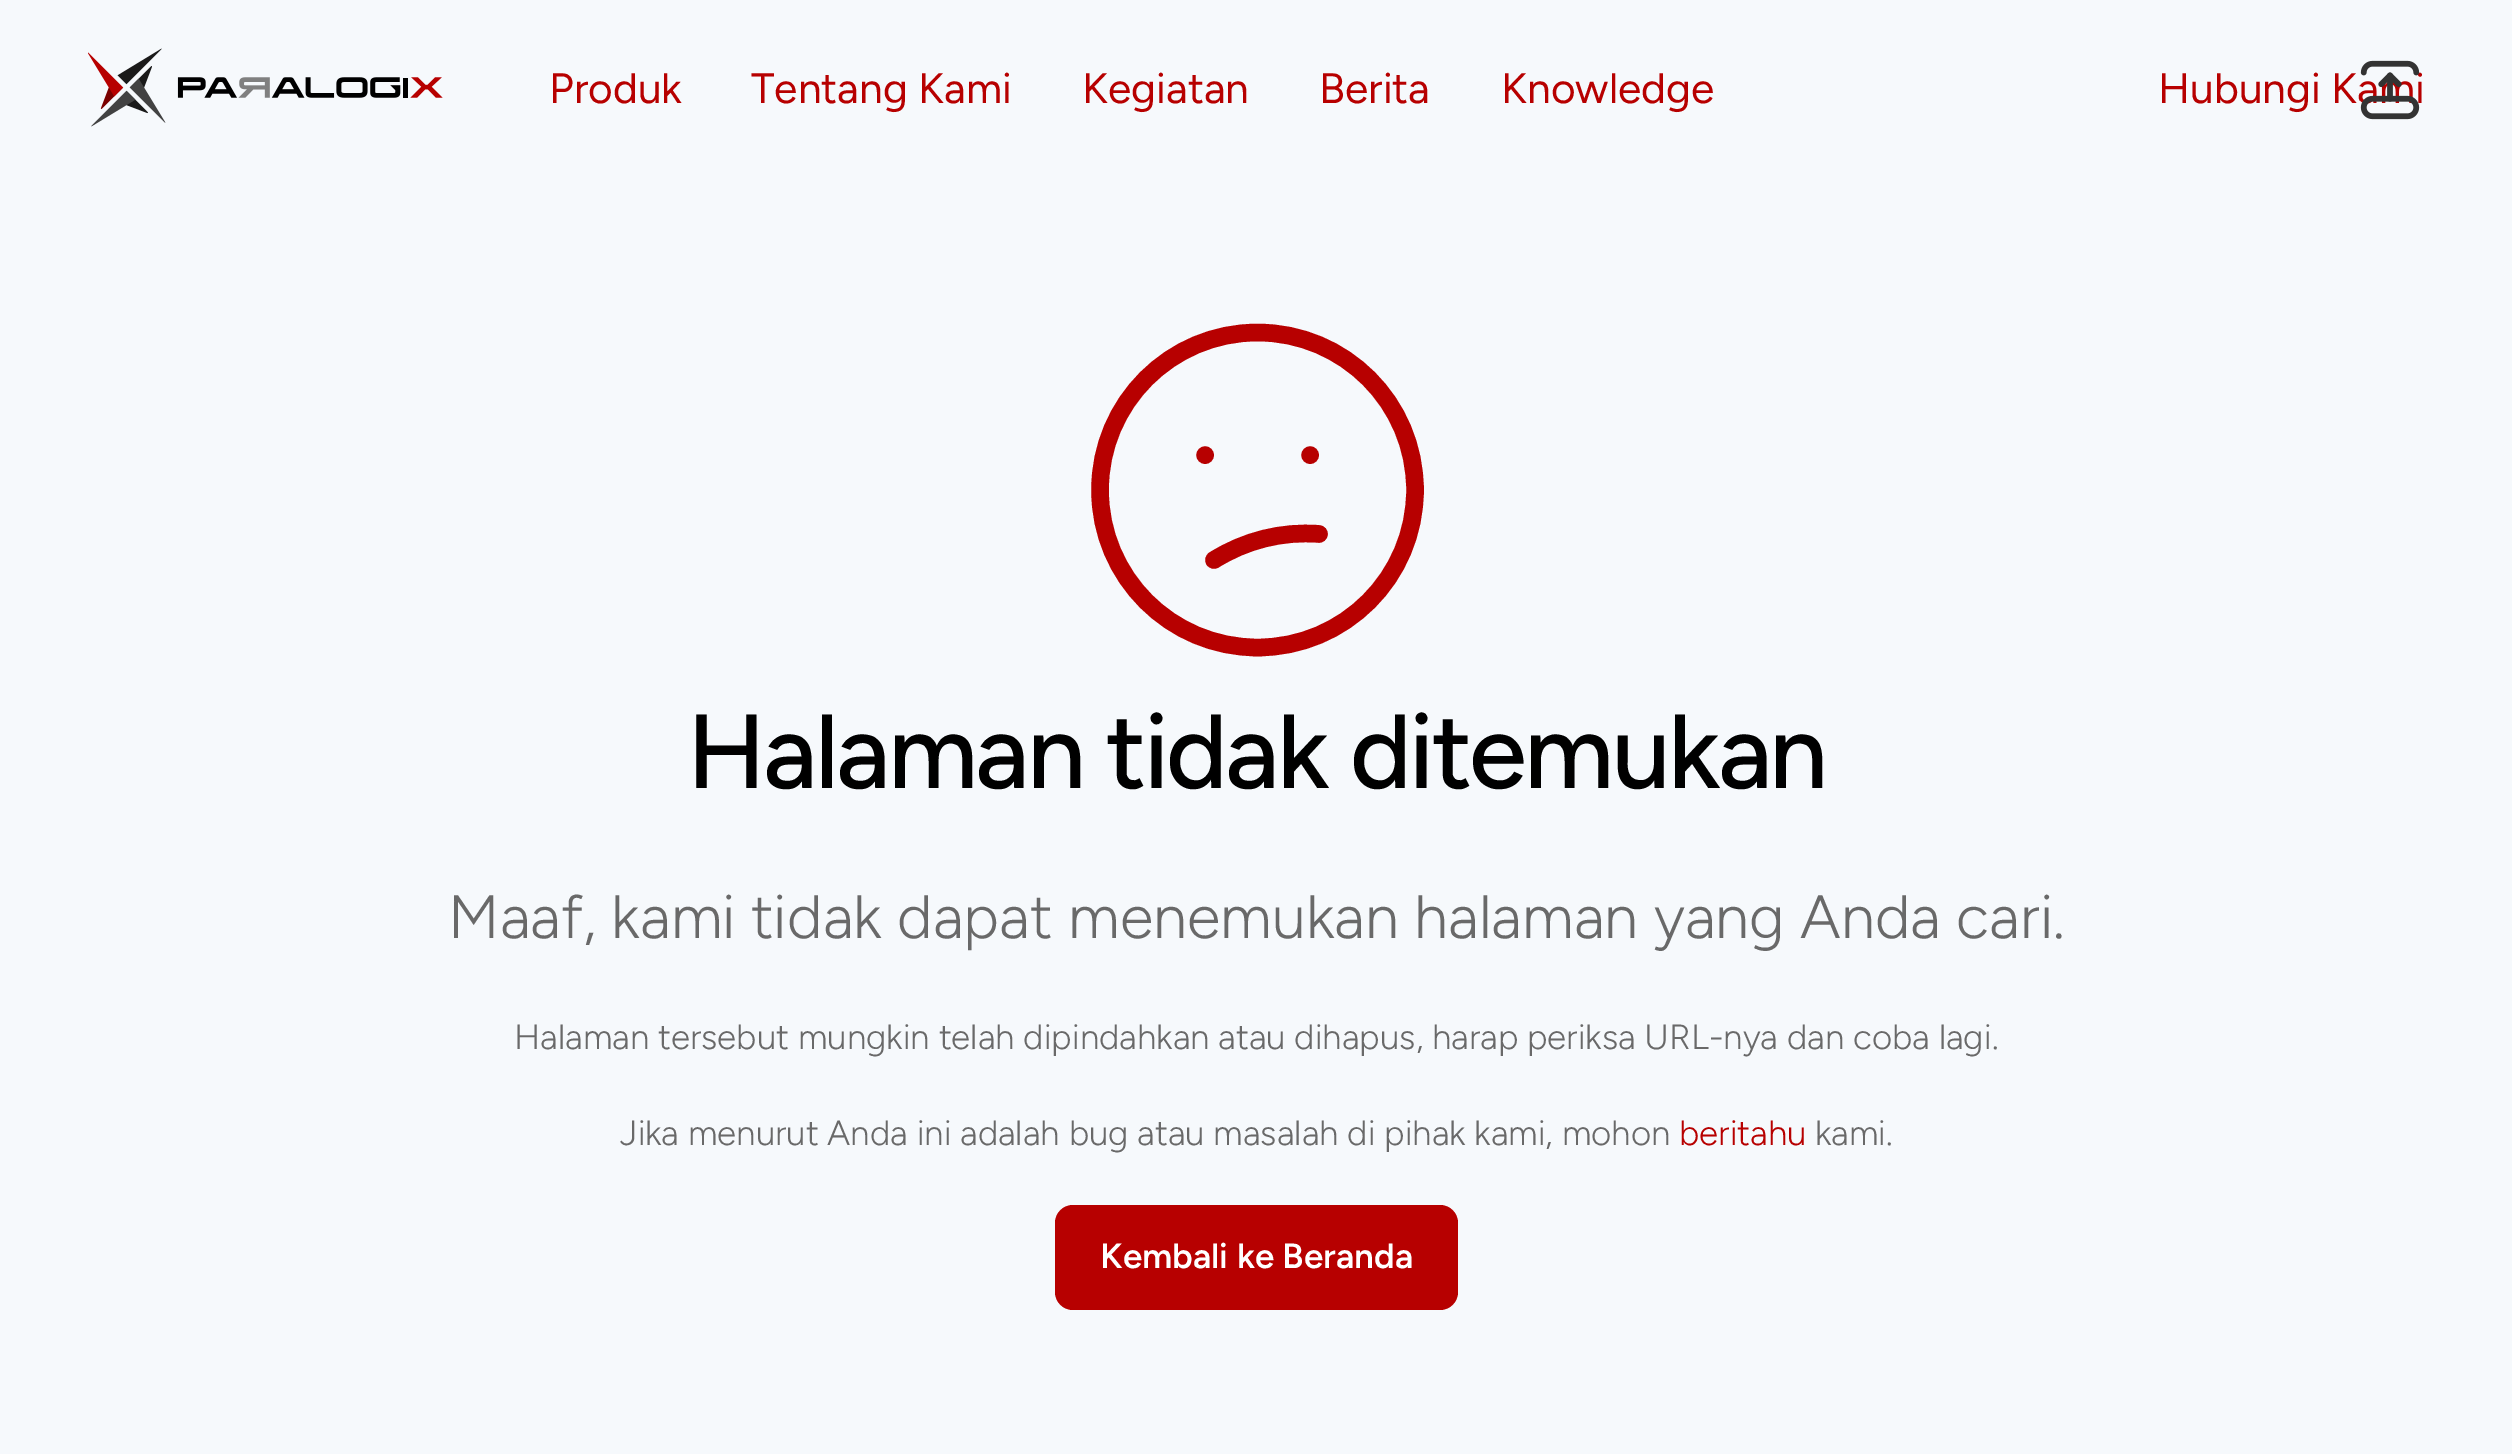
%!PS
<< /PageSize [2512 1454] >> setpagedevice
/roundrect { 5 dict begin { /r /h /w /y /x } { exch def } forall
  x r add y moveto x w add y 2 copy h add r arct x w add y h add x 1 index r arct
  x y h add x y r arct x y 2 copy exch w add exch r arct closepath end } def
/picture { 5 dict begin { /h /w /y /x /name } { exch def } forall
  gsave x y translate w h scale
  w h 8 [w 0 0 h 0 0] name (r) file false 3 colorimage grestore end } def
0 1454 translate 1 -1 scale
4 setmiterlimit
0.965 0.976 0.988 setrgbcolor
0 0 2512 1454 rectfill
(img1.rgb) 88 48 355 79 picture
/Figtree-Regular [42.5 0 0 -42.5 0 0] selectfont
0.718 0 0 setrgbcolor
2158 103 moveto (Hubungi Kami) show
(img2.rgb) 2360 60 60 60 picture
549 103 moveto (Produk) show
751 103 moveto (Tentang Kami) show
1082 103 moveto (Kegiatan) show
1319 103 moveto (Berita) show
1501 103 moveto (Knowledge) show
17.5 setlinewidth
1 setlinecap
1 setlinejoin
newpath 1100 490 moveto 1100 577 1170.5 647.5 1257.5 647.5 curveto 1344.5 647.5 1415 577 1415 490 curveto 1415 403 1344.5 332.5 1257.5 332.5 curveto 1170.5 332.5 1100 403 1100 490 curveto stroke
newpath 1205 455 moveto 1205 455 lineto stroke
newpath 1310 455 moveto 1310 455 lineto stroke
newpath 1214 560 moveto 1245 540.5 1282 531 1319 534 curveto stroke
/Figtree-Medium [105 0 0 -105 0 0] selectfont
0 setgray
687 788 moveto -2.6 0 (Halaman tidak ditemukan) ashow
/Figtree-Light [61.25 0 0 -61.25 0 0] selectfont
0.412 setgray
448 938 moveto (Maaf, kami tidak dapat menemukan halaman yang Anda cari.) show
/Figtree-Light [35 0 0 -35 0 0] selectfont
514 1049 moveto (Halaman tersebut mungkin telah dipindahkan atau dihapus, harap periksa URL-nya dan coba lagi.) show
620 1145 moveto (Jika menurut Anda ini adalah bug atau masalah di pihak kami, mohon) show
0.718 0 0 setrgbcolor
1679 1145 moveto (beritahu) show
0.412 setgray
1815 1145 moveto (kami.) show
0.718 0 0 setrgbcolor
1055 1205 403 105 18 roundrect fill
/Figtree-SemiBold [35 0 0 -35 0 0] selectfont
1 setgray
1100 1268 moveto (Kembali ke Beranda) show
showpage
